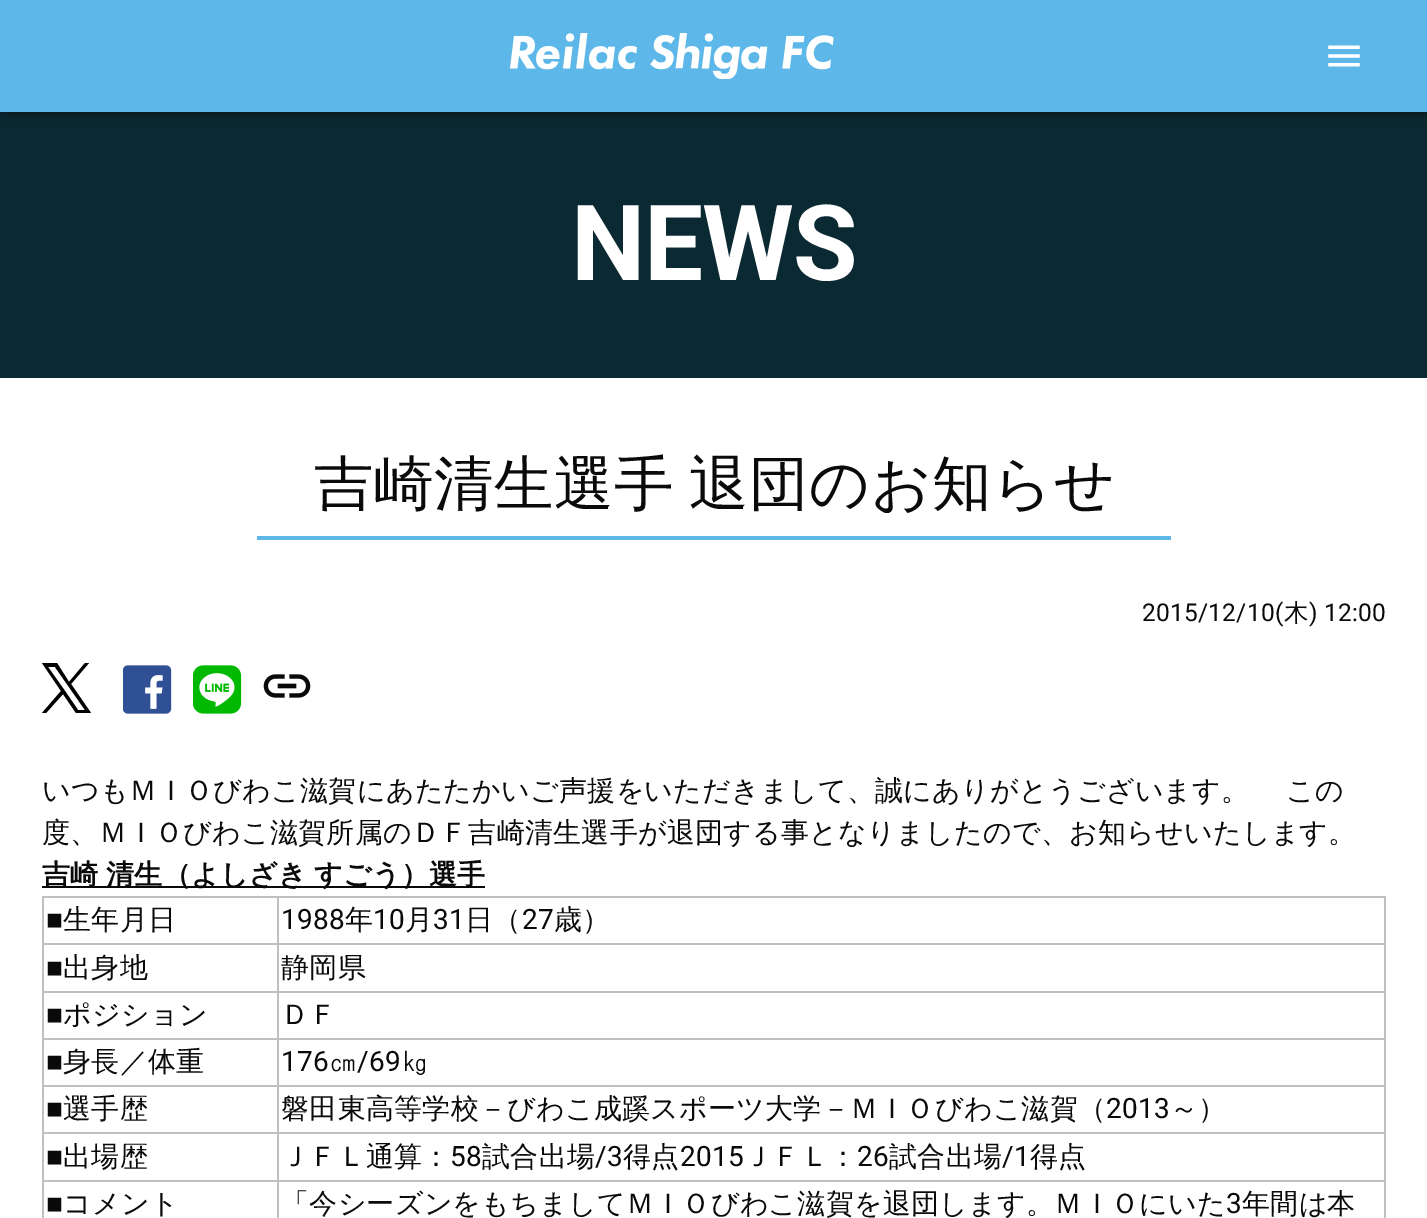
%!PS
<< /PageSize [1427 1218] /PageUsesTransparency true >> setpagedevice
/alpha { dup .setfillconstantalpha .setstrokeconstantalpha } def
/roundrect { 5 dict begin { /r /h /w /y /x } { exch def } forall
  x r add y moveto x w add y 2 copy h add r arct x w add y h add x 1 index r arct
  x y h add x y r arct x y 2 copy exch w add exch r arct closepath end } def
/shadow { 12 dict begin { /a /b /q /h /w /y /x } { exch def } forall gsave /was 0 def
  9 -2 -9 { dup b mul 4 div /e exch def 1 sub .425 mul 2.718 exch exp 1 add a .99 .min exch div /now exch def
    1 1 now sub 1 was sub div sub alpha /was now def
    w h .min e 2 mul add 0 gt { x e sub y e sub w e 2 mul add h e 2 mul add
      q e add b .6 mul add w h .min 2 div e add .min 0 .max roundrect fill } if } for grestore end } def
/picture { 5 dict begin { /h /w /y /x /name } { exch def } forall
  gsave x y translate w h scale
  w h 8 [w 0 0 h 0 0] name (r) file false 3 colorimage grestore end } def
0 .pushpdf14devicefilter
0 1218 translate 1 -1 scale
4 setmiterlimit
1 setgray
0 0 1427 1218 rectfill
0.039 0.161 0.2 setrgbcolor
0 112 1427 266 rectfill
0 setgray
0 2 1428 112 0 9 0.12 shadow
0 7 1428 112 0 4.5 0.14 shadow
2 5 1424 109 0 3.5 0.2 shadow
0.365 0.722 0.914 setrgbcolor
0 0 1427 112 rectfill
(img1.rgb) 510 33 324 46 picture
(img2.rgb) 1328 45 32 22 picture
/Roboto-Bold [105 0 0 -105 0 0] selectfont
1 setgray
571 280 moveto -1 0 (NEWS) ashow
0.365 0.722 0.914 setrgbcolor
257 536 914 4 rectfill
/WenQuanYiZenHei-Medium [59.5 0 0 -59.5 0 0] selectfont
0.039 setgray
314 504 moveto -3 0 32 0.5 0 (吉崎清生選手 退団のお知らせ) awidthshow
/Roboto-Regular [24.5 0 0 -24.5 0 0] selectfont
1142 621 moveto 0.25 0 (2015/12/10\() ashow
/WenQuanYiZenHei-Medium [24.5 0 0 -24.5 0 0] selectfont
1284 621 moveto 0.25 0 (木) ashow
/Roboto-Regular [24.5 0 0 -24.5 0 0] selectfont
1309 621 moveto 0.25 0 (\) 12:00) ashow
0 setgray
newpath 71 684 moveto 89 663 lineto 85 663 lineto 69 682 lineto 57 663 lineto 42 663 lineto 61 691 lineto 42 713 lineto 46 713 lineto 63 694 lineto 76 713 lineto 91 713 lineto closepath 65 691 moveto 48 667 lineto 55 667 lineto 85 710 lineto 78 710 lineto closepath fill
(img3.rgb) 123 665 49 49 picture
(img4.rgb) 193 665 49 49 picture
(img5.rgb) 263 674 48 24 picture
/WenQuanYiZenHei-Medium [28 0 0 -28 0 0] selectfont
0.039 setgray
42 800 moveto 0.25 0 (いつもＭＩＯびわこ滋賀にあたたかいご声援をいただきまして、誠にありがとうございます。) ashow
1286 800 moveto 0.25 0 (この) ashow
42 842 moveto 0.25 0 (度、ＭＩＯびわこ滋賀所属のＤＦ吉崎清生選手が退団する事となりましたので、お知らせいたします。) ashow
42 886 443 2 rectfill
/WenQuanYiZenHei-Bold [28 0 0 -28 0 0] selectfont
42 884 moveto -1 0 32 0.25 0 (吉崎 清生（よしざき すごう）選手) awidthshow
0.753 setgray
42 896 1344 2 rectfill
1384 896 2 322 rectfill
42 896 2 322 rectfill
/LiberationSans-Regular [28 0 0 -28 0 0] selectfont
0.039 setgray
46 929 moveto 0.25 0 (■) ashow
/WenQuanYiZenHei-Medium [28 0 0 -28 0 0] selectfont
63 929 moveto 0.25 0 (生年月日) ashow
0.753 setgray
277 943 1109 2 rectfill
277 991 1109 2 rectfill
277 1038 1109 2 rectfill
277 1085 1109 2 rectfill
277 1132 1109 2 rectfill
277 1180 1109 2 rectfill
277 1180 2 38 rectfill
42 1180 236 2 rectfill
277 1132 2 49 rectfill
42 1132 236 2 rectfill
277 1085 2 49 rectfill
42 1085 236 2 rectfill
277 1038 2 49 rectfill
42 1038 236 2 rectfill
277 991 2 49 rectfill
42 991 236 2 rectfill
277 943 2 49 rectfill
42 943 236 2 rectfill
277 896 2 49 rectfill
/Roboto-Regular [28 0 0 -28 0 0] selectfont
0.039 setgray
281 929 moveto 0.25 0 (1988) ashow
/WenQuanYiZenHei-Medium [28 0 0 -28 0 0] selectfont
345 929 moveto 0.25 0 (年) ashow
/Roboto-Regular [28 0 0 -28 0 0] selectfont
373 929 moveto 0.25 0 (10) ashow
/WenQuanYiZenHei-Medium [28 0 0 -28 0 0] selectfont
405 929 moveto 0.25 0 (月) ashow
/Roboto-Regular [28 0 0 -28 0 0] selectfont
433 929 moveto 0.25 0 (31) ashow
/WenQuanYiZenHei-Medium [28 0 0 -28 0 0] selectfont
465 929 moveto 0.25 0 (日（) ashow
/Roboto-Regular [28 0 0 -28 0 0] selectfont
522 929 moveto 0.25 0 (27) ashow
/WenQuanYiZenHei-Medium [28 0 0 -28 0 0] selectfont
554 929 moveto 0.25 0 (歳）) ashow
/LiberationSans-Regular [28 0 0 -28 0 0] selectfont
46 977 moveto 0.25 0 (■) ashow
/WenQuanYiZenHei-Medium [28 0 0 -28 0 0] selectfont
63 977 moveto 0.25 0 (出身地) ashow
281 977 moveto 0.25 0 (静岡県) ashow
/LiberationSans-Regular [28 0 0 -28 0 0] selectfont
46 1024 moveto 0.25 0 (■) ashow
/WenQuanYiZenHei-Medium [28 0 0 -28 0 0] selectfont
63 1024 moveto 0.25 0 (ポジション) ashow
281 1024 moveto 0.25 0 (ＤＦ) ashow
/LiberationSans-Regular [28 0 0 -28 0 0] selectfont
46 1071 moveto 0.25 0 (■) ashow
/WenQuanYiZenHei-Medium [28 0 0 -28 0 0] selectfont
63 1071 moveto 0.25 0 (身長／体重) ashow
/Roboto-Regular [28 0 0 -28 0 0] selectfont
281 1071 moveto 0.25 0 (176) ashow
/WenQuanYiZenHei-Medium [28 0 0 -28 0 0] selectfont
329 1071 moveto 0.25 0 (㎝) ashow
/Roboto-Regular [28 0 0 -28 0 0] selectfont
357 1071 moveto 0.25 0 (/69) ashow
/WenQuanYiZenHei-Medium [28 0 0 -28 0 0] selectfont
401 1071 moveto 0.25 0 (㎏) ashow
/LiberationSans-Regular [28 0 0 -28 0 0] selectfont
46 1118 moveto 0.25 0 (■) ashow
/WenQuanYiZenHei-Medium [28 0 0 -28 0 0] selectfont
63 1118 moveto 0.25 0 (選手歴) ashow
281 1118 moveto 0.25 0 (磐田東高等学校－びわこ成蹊スポーツ大学－ＭＩＯびわこ滋賀（) ashow
/Roboto-Regular [28 0 0 -28 0 0] selectfont
1106 1118 moveto 0.25 0 (2013) ashow
/WenQuanYiZenHei-Medium [28 0 0 -28 0 0] selectfont
1170 1118 moveto 0.25 0 (～）) ashow
/LiberationSans-Regular [28 0 0 -28 0 0] selectfont
46 1166 moveto 0.25 0 (■) ashow
/WenQuanYiZenHei-Medium [28 0 0 -28 0 0] selectfont
63 1166 moveto 0.25 0 (出場歴) ashow
281 1166 moveto 0.25 0 (ＪＦＬ通算：) ashow
/Roboto-Regular [28 0 0 -28 0 0] selectfont
450 1166 moveto 0.25 0 (58) ashow
/WenQuanYiZenHei-Medium [28 0 0 -28 0 0] selectfont
482 1166 moveto 0.25 0 (試合出場) ashow
/Roboto-Regular [28 0 0 -28 0 0] selectfont
595 1166 moveto 0.25 0 (/3) ashow
/WenQuanYiZenHei-Medium [28 0 0 -28 0 0] selectfont
623 1166 moveto 0.25 0 (得点) ashow
/Roboto-Regular [28 0 0 -28 0 0] selectfont
680 1166 moveto 0.25 0 (2015) ashow
/WenQuanYiZenHei-Medium [28 0 0 -28 0 0] selectfont
744 1166 moveto 0.25 0 (ＪＦＬ：) ashow
/Roboto-Regular [28 0 0 -28 0 0] selectfont
857 1166 moveto 0.25 0 (26) ashow
/WenQuanYiZenHei-Medium [28 0 0 -28 0 0] selectfont
889 1166 moveto 0.25 0 (試合出場) ashow
/Roboto-Regular [28 0 0 -28 0 0] selectfont
1002 1166 moveto 0.25 0 (/1) ashow
/WenQuanYiZenHei-Medium [28 0 0 -28 0 0] selectfont
1030 1166 moveto 0.25 0 (得点) ashow
/LiberationSans-Regular [28 0 0 -28 0 0] selectfont
46 1213 moveto 0.25 0 (■) ashow
/WenQuanYiZenHei-Medium [28 0 0 -28 0 0] selectfont
63 1213 moveto 0.25 0 (コメント) ashow
281 1213 moveto 0.25 0 (「今シーズンをもちましてＭＩＯびわこ滋賀を退団します。ＭＩＯにいた) ashow
/Roboto-Regular [28 0 0 -28 0 0] selectfont
1226 1213 moveto 0.25 0 (3) ashow
/WenQuanYiZenHei-Medium [28 0 0 -28 0 0] selectfont
1242 1213 moveto 0.25 0 (年間は本) ashow
.poppdf14devicefilter showpage
